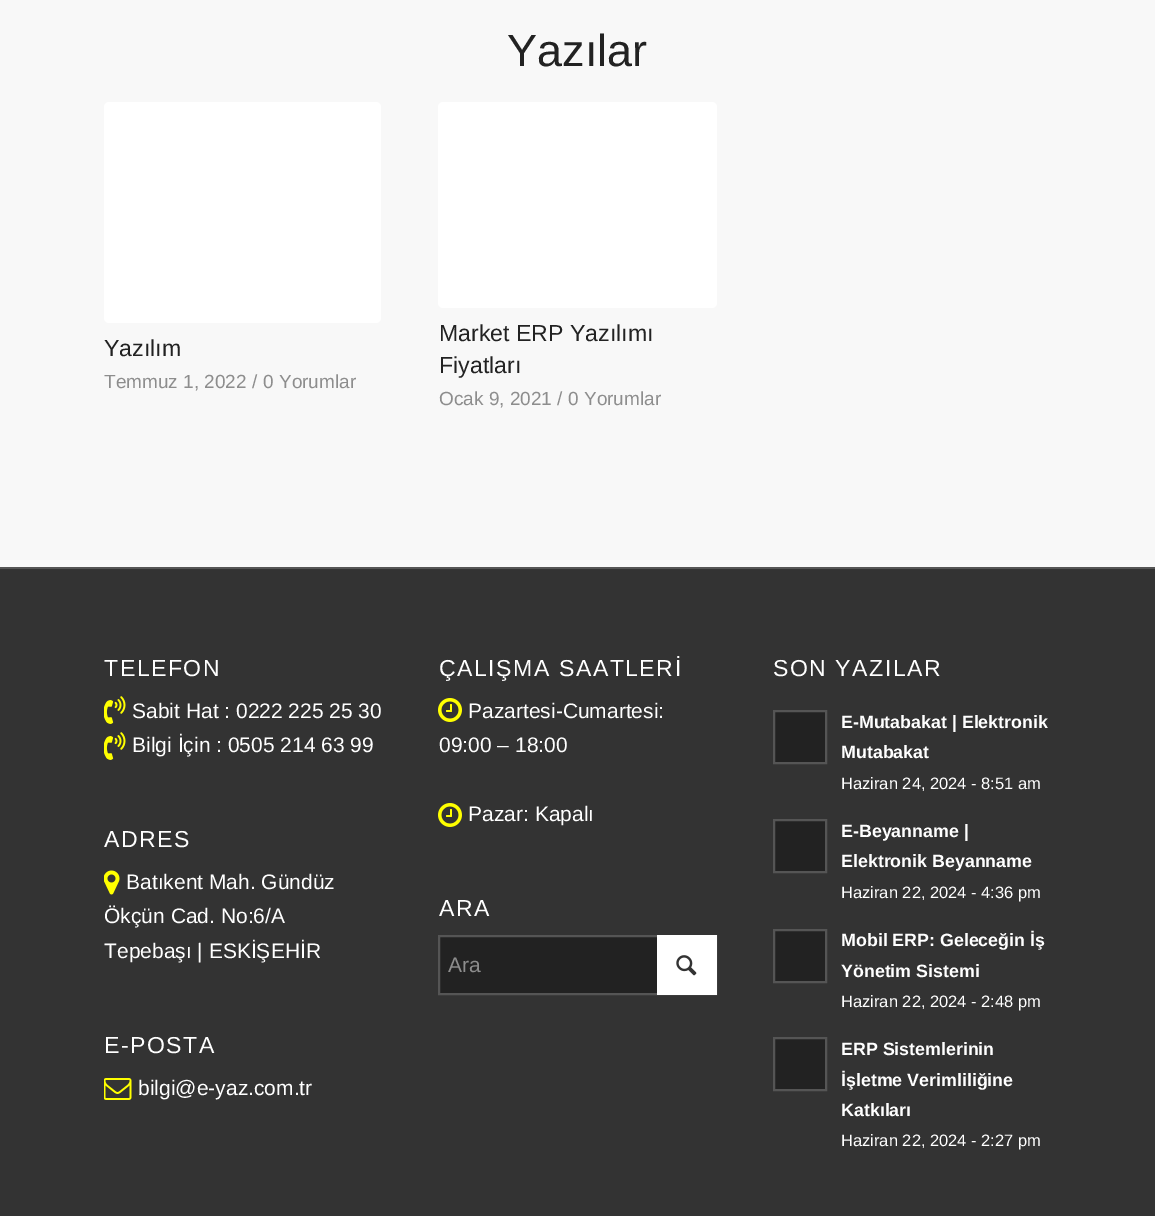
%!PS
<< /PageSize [1155 1216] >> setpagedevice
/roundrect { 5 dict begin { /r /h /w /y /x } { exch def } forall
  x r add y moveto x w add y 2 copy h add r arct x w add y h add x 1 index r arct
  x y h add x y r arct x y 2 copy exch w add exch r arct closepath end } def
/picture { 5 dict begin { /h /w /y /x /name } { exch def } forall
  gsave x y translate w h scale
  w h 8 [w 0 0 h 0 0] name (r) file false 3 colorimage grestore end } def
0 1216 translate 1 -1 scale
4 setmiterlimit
0.973 setgray
0 0 1155 1216 rectfill
/LiberationSans-Regular [45 0 0 -45 0 0] selectfont
0.133 setgray
507 66 moveto (Yazılar) show
1 setgray
104 102 277 221 5 roundrect fill
/LiberationSans-Regular [23.1 0 0 -23.1 0 0] selectfont
0.133 setgray
104 356 moveto (Yazılım) show
/LiberationSans-Regular [19 0 0 -19 0 0] selectfont
0.553 setgray
104 388 moveto (Temmuz 1, 2022) show
252 388 moveto (/) show
263 388 moveto (0 Yorumlar) show
1 setgray
438 102 279 206 5 roundrect fill
/LiberationSans-Regular [23.1 0 0 -23.1 0 0] selectfont
0.133 setgray
439 341 moveto (Market ERP Yazılımı) show
439 373 moveto (Fiyatları) show
/LiberationSans-Regular [19 0 0 -19 0 0] selectfont
0.553 setgray
439 405 moveto (Ocak 9, 2021) show
557 405 moveto (/) show
568 405 moveto (0 Yorumlar) show
0.2 setgray
0 569 1155 647 rectfill
0.333 setgray
0 567 1155 2 rectfill
/LiberationSans-Regular [23.1 0 0 -23.1 0 0] selectfont
1 setgray
104 676 moveto 1.5 0 (TELEFON) ashow
(img1.rgb) 104 696 22 28 picture
/LiberationSans-Regular [21 0 0 -21 0 0] selectfont
132 718 moveto (Sabit Hat : 0222 225 25 30) show
(img1.rgb) 104 732 22 28 picture
132 752 moveto (Bilgi İçin : 0505 214 63 99) show
/LiberationSans-Regular [23.1 0 0 -23.1 0 0] selectfont
104 847 moveto 1.5 0 (ADRES) ashow
(img2.rgb) 104 870 16 25 picture
/LiberationSans-Regular [21 0 0 -21 0 0] selectfont
126 889 moveto (Batıkent Mah. Gündüz) show
104 923 moveto (Ökçün Cad. No:6/A) show
104 958 moveto (Tepebaşı | ESKİŞEHİR) show
/LiberationSans-Regular [23.1 0 0 -23.1 0 0] selectfont
104 1053 moveto 1.5 0 (E-POSTA) ashow
(img3.rgb) 104 1078 28 22 picture
/LiberationSans-Regular [21 0 0 -21 0 0] selectfont
138 1095 moveto (bilgi@e-yaz.com.tr) show
/LiberationSans-Regular [23.1 0 0 -23.1 0 0] selectfont
439 676 moveto 1.5 0 (ÇALIŞMA SAATLERİ) ashow
(img4.rgb) 438 698 24 24 picture
/LiberationSans-Regular [21 0 0 -21 0 0] selectfont
468 718 moveto (Pazartesi-Cumartesi:) show
439 752 moveto (09:00 – 18:00) show
(img4.rgb) 438 803 24 24 picture
468 821 moveto (Pazar: Kapalı) show
/LiberationSans-Regular [23.1 0 0 -23.1 0 0] selectfont
439 916 moveto 1.5 0 (ARA) ashow
0.133 setgray
440 937 217 56 rectfill
0.333 setgray
2 setlinewidth
439 936 277 58 rectstroke
1 setgray
657 935 60 60 rectfill
/LiberationSans-Regular [21 0 0 -21 0 0] selectfont
0.553 setgray
448 972 moveto (Ara) show
(img5.rgb) 676 955 21 21 picture
/LiberationSans-Regular [23.1 0 0 -23.1 0 0] selectfont
1 setgray
773 676 moveto 1.5 0 (SON YAZILAR) ashow
0.133 setgray
newpath 774 711 moveto 826 711 lineto 826 763 lineto 774 763 lineto closepath gsave fill grestore
0.333 setgray
stroke
/LiberationSans-Bold [17.8 0 0 -17.8 0 0] selectfont
1 setgray
841 728 moveto (E-Mutabakat | Elektronik) show
841 758 moveto (Mutabakat) show
/LiberationSans-Regular [16.5 0 0 -16.5 0 0] selectfont
841 789 moveto (Haziran 24, 2024 - 8:51 am) show
0.133 setgray
newpath 774 820 moveto 826 820 lineto 826 872 lineto 774 872 lineto closepath gsave fill grestore
0.333 setgray
stroke
/LiberationSans-Bold [17.8 0 0 -17.8 0 0] selectfont
1 setgray
841 837 moveto (E-Beyanname |) show
841 867 moveto (Elektronik Beyanname) show
/LiberationSans-Regular [16.5 0 0 -16.5 0 0] selectfont
841 898 moveto (Haziran 22, 2024 - 4:36 pm) show
0.133 setgray
newpath 774 930 moveto 826 930 lineto 826 982 lineto 774 982 lineto closepath gsave fill grestore
0.333 setgray
stroke
/LiberationSans-Bold [17.8 0 0 -17.8 0 0] selectfont
1 setgray
841 946 moveto (Mobil ERP: Geleceğin İş) show
841 977 moveto (Yönetim Sistemi) show
/LiberationSans-Regular [16.5 0 0 -16.5 0 0] selectfont
841 1007 moveto (Haziran 22, 2024 - 2:48 pm) show
0.133 setgray
newpath 774 1038 moveto 826 1038 lineto 826 1090 lineto 774 1090 lineto closepath gsave fill grestore
0.333 setgray
stroke
/LiberationSans-Bold [17.8 0 0 -17.8 0 0] selectfont
1 setgray
841 1055 moveto (ERP Sistemlerinin) show
841 1086 moveto (İşletme Verimliliğine) show
841 1116 moveto (Katkıları) show
/LiberationSans-Regular [16.5 0 0 -16.5 0 0] selectfont
841 1146 moveto (Haziran 22, 2024 - 2:27 pm) show
showpage
